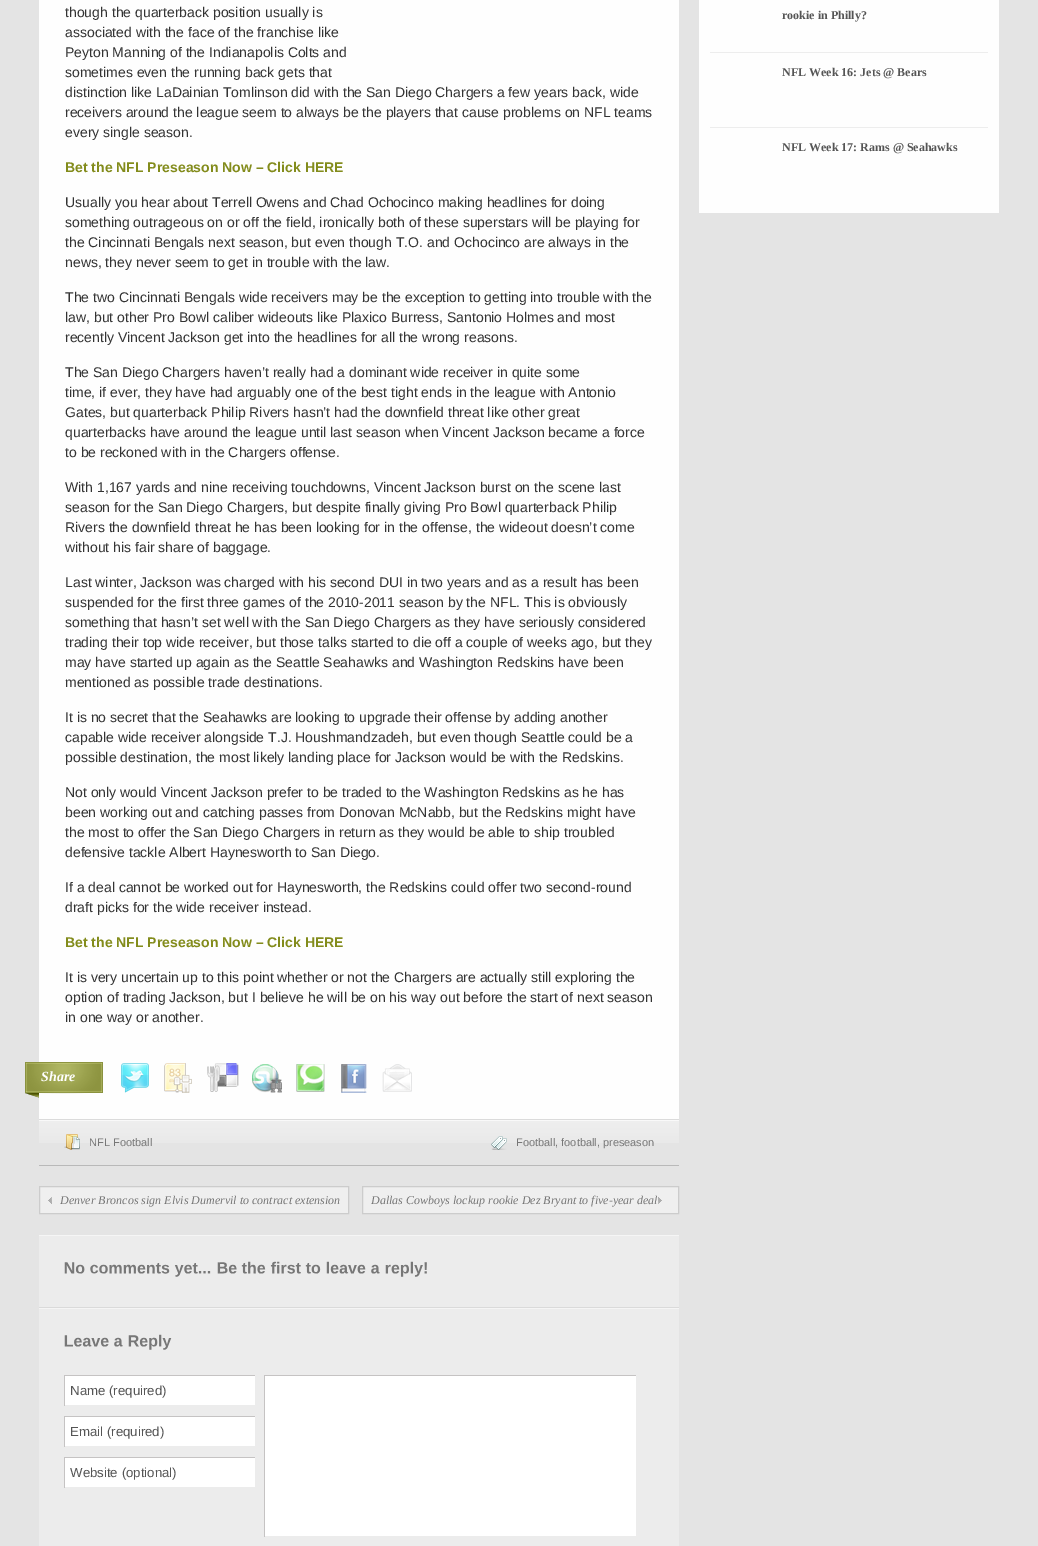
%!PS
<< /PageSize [1038 1546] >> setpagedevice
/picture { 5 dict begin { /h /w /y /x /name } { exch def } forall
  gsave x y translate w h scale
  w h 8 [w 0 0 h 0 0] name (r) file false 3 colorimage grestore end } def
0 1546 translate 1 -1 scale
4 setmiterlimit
0.894 setgray
0 0 1038 1546 rectfill
0.996 setgray
39 0 640 1119 rectfill
/LiberationSans-Regular [14 0 0 -14 0 0] selectfont
0.2 setgray
65 17 moveto (though the quarterback position usually is) show
65 37 moveto (associated with the face of the franchise like) show
65 57 moveto (Peyton Manning of the Indianapolis Colts and) show
65 77 moveto (sometimes even the running back gets that) show
65 97 moveto (distinction like LaDainian Tomlinson did with the San Diego Chargers a few years back, wide) show
65 117 moveto (receivers around the league seem to always be the players that cause problems on NFL teams) show
65 137 moveto (every single season.) show
/LiberationSans-Bold [14 0 0 -14 0 0] selectfont
0.514 0.549 0.11 setrgbcolor
65 172 moveto (Bet the NFL Preseason Now – Click HERE) show
/LiberationSans-Regular [14 0 0 -14 0 0] selectfont
0.2 setgray
65 207 moveto (Usually you hear about Terrell Owens and Chad Ochocinco making headlines for doing) show
65 227 moveto (something outrageous on or off the field, ironically both of these superstars will be playing for) show
65 247 moveto (the Cincinnati Bengals next season, but even though T.O. and Ochocinco are always in the) show
65 267 moveto (news, they never seem to get in trouble with the law.) show
65 302 moveto (The two Cincinnati Bengals wide receivers may be the exception to getting into trouble with the) show
65 322 moveto (law, but other Pro Bowl caliber wideouts like Plaxico Burress, Santonio Holmes and most) show
65 342 moveto (recently Vincent Jackson get into the headlines for all the wrong reasons.) show
65 377 moveto (The San Diego Chargers haven’t really had a dominant wide receiver in quite some) show
65 397 moveto (time, if ever, they have had arguably one of the best tight ends in the league with Antonio) show
65 417 moveto (Gates, but quarterback Philip Rivers hasn’t had the downfield threat like other great) show
65 437 moveto (quarterbacks have around the league until last season when Vincent Jackson became a force) show
65 457 moveto (to be reckoned with in the Chargers offense.) show
65 492 moveto (With 1,167 yards and nine receiving touchdowns, Vincent Jackson burst on the scene last) show
65 512 moveto (season for the San Diego Chargers, but despite finally giving Pro Bowl quarterback Philip) show
65 532 moveto (Rivers the downfield threat he has been looking for in the offense, the wideout doesn’t come) show
65 552 moveto (without his fair share of baggage.) show
65 587 moveto (Last winter, Jackson was charged with his second DUI in two years and as a result has been) show
65 607 moveto (suspended for the first three games of the 2010-2011 season by the NFL. This is obviously) show
65 627 moveto (something that hasn’t set well with the San Diego Chargers as they have seriously considered) show
65 647 moveto (trading their top wide receiver, but those talks started to die off a couple of weeks ago, but they) show
65 667 moveto (may have started up again as the Seattle Seahawks and Washington Redskins have been) show
65 687 moveto (mentioned as possible trade destinations.) show
65 722 moveto (It is no secret that the Seahawks are looking to upgrade their offense by adding another) show
65 742 moveto (capable wide receiver alongside T.J. Houshmandzadeh, but even though Seattle could be a) show
65 762 moveto (possible destination, the most likely landing place for Jackson would be with the Redskins.) show
65 797 moveto (Not only would Vincent Jackson prefer to be traded to the Washington Redskins as he has) show
65 817 moveto (been working out and catching passes from Donovan McNabb, but the Redskins might have) show
65 837 moveto (the most to offer the San Diego Chargers in return as they would be able to ship troubled) show
65 857 moveto (defensive tackle Albert Haynesworth to San Diego.) show
65 892 moveto (If a deal cannot be worked out for Haynesworth, the Redskins could offer two second-round) show
65 912 moveto (draft picks for the wide receiver instead.) show
/LiberationSans-Bold [14 0 0 -14 0 0] selectfont
0.514 0.549 0.11 setrgbcolor
65 947 moveto (Bet the NFL Preseason Now – Click HERE) show
/LiberationSans-Regular [14 0 0 -14 0 0] selectfont
0.2 setgray
65 982 moveto (It is very uncertain up to this point whether or not the Chargers are actually still exploring the) show
65 1002 moveto (option of trading Jackson, but I believe he will be on his way out before the start of next season) show
65 1022 moveto (in one way or another.) show
(img1.rgb) 25 1062 78 36 picture
/LiberationSerif-BoldItalic [14 0 0 -14 0 0] selectfont
1 setgray
41 1081 moveto (Share) show
(img2.rgb) 121 1063 28 30 picture
(img3.rgb) 164 1063 28 30 picture
(img4.rgb) 207 1063 32 29 picture
(img5.rgb) 252 1064 30 29 picture
(img6.rgb) 296 1064 29 28 picture
(img7.rgb) 341 1064 26 29 picture
(img8.rgb) 382 1064 30 28 picture
(img9.rgb) 39 1120 640 23 picture
0.859 setgray
39 1119 640 1 rectfill
0.725 setgray
39 1165 640 1 rectfill
(img10.rgb) 64 1134 16 16 picture
/LiberationSans-Regular [11 0 0 -11 0 0] selectfont
0.467 setgray
89 1146 moveto (NFL Football) show
(img11.rgb) 491 1136 16 14 picture
516 1146 moveto (Football, football, preseason) show
0.937 setgray
40 1187 308 26 rectfill
(img12.rgb) 48 1197 4 7 picture
0.8 setgray
39.5 1186.5 309 27 rectstroke
/LiberationSerif-Italic [12 0 0 -12 0 0] selectfont
0.467 setgray
60 1204 moveto (Denver Broncos sign Elvis Dumervil to contract extension) show
0.937 setgray
363 1187 315 26 rectfill
(img13.rgb) 658 1197 4 7 picture
0.8 setgray
362.5 1186.5 316 27 rectstroke
0.467 setgray
371 1204 moveto (Dallas Cowboys lockup rookie Dez Bryant to five-year deal) show
0.925 setgray
39 1236 640 71 rectfill
0.961 setgray
39 1235 640 1 rectfill
0.855 setgray
39 1307 640 1 rectfill
(img14.rgb) 64 1262 21 12 picture
(img15.rgb) 90 1263 80 11 picture
(img16.rgb) 174 1263 37 14 picture
(img17.rgb) 217 1262 20 12 picture
(img18.rgb) 241 1261 25 13 picture
(img19.rgb) 270 1261 31 13 picture
(img20.rgb) 305 1263 16 11 picture
(img21.rgb) 326 1261 40 13 picture
(img22.rgb) 371 1264 9 10 picture
(img23.rgb) 385 1261 42 16 picture
0.925 setgray
39 1309 640 237 rectfill
0.961 setgray
39 1308 640 1 rectfill
(img24.rgb) 64 1335 45 12 picture
(img22.rgb) 114 1337 9 10 picture
(img25.rgb) 128 1334 44 16 picture
1 setgray
65 1376 190 29 rectfill
0.773 0.765 0.765 setrgbcolor
64 1375 192 1 rectfill
0.929 setgray
255 1375 1 1 rectfill
0.773 0.765 0.765 setrgbcolor
64 1375 1 31 rectfill
/LiberationSans-Regular [13.25 0 0 -13.25 0 0] selectfont
0.333 setgray
70 1395 moveto (Name \(required\)) show
1 setgray
65 1417 190 29 rectfill
0.773 0.765 0.765 setrgbcolor
64 1416 192 1 rectfill
0.929 setgray
255 1416 1 1 rectfill
0.773 0.765 0.765 setrgbcolor
64 1416 1 31 rectfill
0.333 setgray
70 1436 moveto (Email \(required\)) show
1 setgray
65 1458 190 29 rectfill
0.773 0.765 0.765 setrgbcolor
64 1457 192 1 rectfill
0.929 setgray
255 1457 1 1 rectfill
0.773 0.765 0.765 setrgbcolor
64 1457 1 31 rectfill
0.333 setgray
70 1477 moveto (Website \(optional\)) show
1 setgray
265 1376 371 160 rectfill
0.773 0.765 0.765 setrgbcolor
264 1375 373 1 rectfill
0.929 setgray
636 1375 1 1 rectfill
0.773 0.765 0.765 setrgbcolor
264 1375 1 162 rectfill
0.996 setgray
699 0 300 213 rectfill
0.929 setgray
710 52 278 1 rectfill
/LiberationSerif-Bold [12 0 0 -12 0 0] selectfont
0.333 setgray
782 19 moveto (rookie in Philly?) show
0.929 setgray
710 127 278 1 rectfill
0.333 setgray
782 76 moveto (NFL Week 16: Jets @ Bears) show
782 151 moveto (NFL Week 17: Rams @ Seahawks) show
showpage
